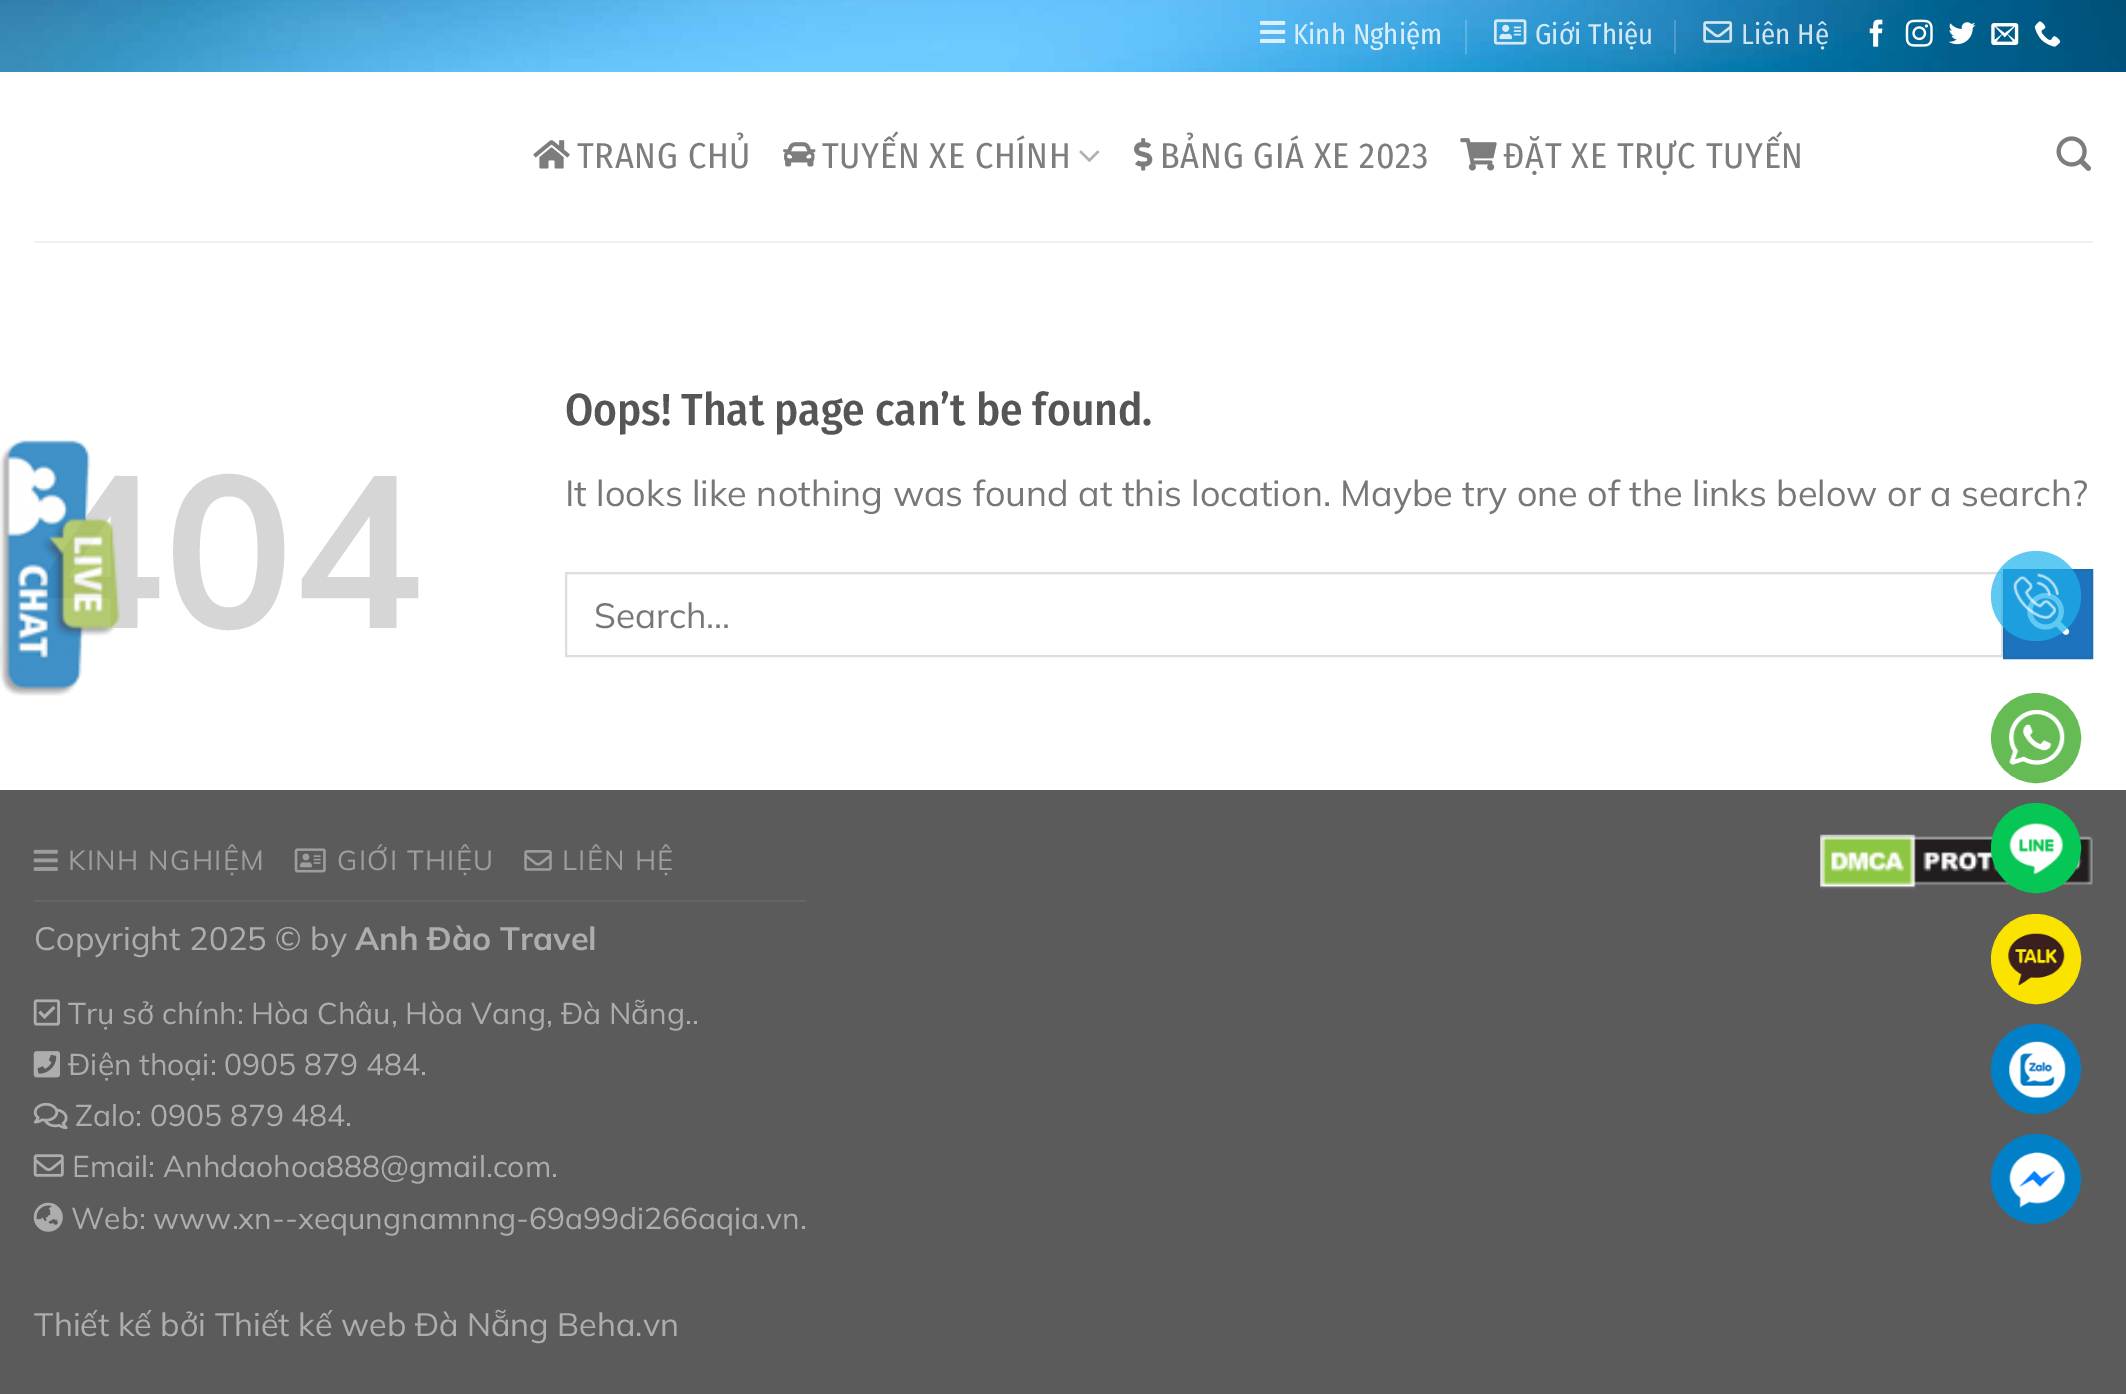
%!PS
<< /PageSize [2126 1394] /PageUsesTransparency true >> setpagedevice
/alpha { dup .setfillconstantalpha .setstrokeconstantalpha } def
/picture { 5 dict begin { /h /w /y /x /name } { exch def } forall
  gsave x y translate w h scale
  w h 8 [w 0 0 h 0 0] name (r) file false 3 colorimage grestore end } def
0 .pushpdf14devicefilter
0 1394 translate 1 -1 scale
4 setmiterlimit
0.357 setgray
0 0 2126 1394 rectfill
1 setgray
0 72 2126 718 rectfill
(img1.rgb) 0 0 2126 72 picture
(img2.rgb) 1260 20 26 23 picture
/FiraSansCondensed-Regular [28.75 0 0 -28.75 0 0] selectfont
0.851 0.933 0.98 setrgbcolor
1293 44 moveto (Kinh Nghiệm) show
0.2 alpha
1 setgray
1465 20 2 34 rectfill
1 alpha
(img3.rgb) 1494 19 33 26 picture
0.831 0.914 0.957 setrgbcolor
1535 44 moveto (Giới Thiệu) show
0.2 alpha
1 setgray
1674 20 2 34 rectfill
1 alpha
(img4.rgb) 1703 21 30 22 picture
0.816 0.89 0.933 setrgbcolor
1741 44 moveto (Liên Hệ) show
(img5.rgb) 1869 19 14 28 picture
(img6.rgb) 1905 19 28 28 picture
(img7.rgb) 1948 22 28 23 picture
(img8.rgb) 1991 23 28 22 picture
(img9.rgb) 2034 21 27 26 picture
(img10.rgb) 533 140 37 29 picture
/FiraSansCondensed-Regular [36 0 0 -36 0 0] selectfont
0.49 setgray
577 168 moveto 0.75 0 (TRANG CHỦ) ashow
(img11.rgb) 783 142 33 25 picture
822 168 moveto 0.75 0 (TUYẾN XE CHÍNH) ashow
(img12.rgb) 1079 150 21 12 picture
(img13.rgb) 1134 138 19 33 picture
1160 168 moveto 0.75 0 (BẢNG GIÁ XE 2023) ashow
(img14.rgb) 1460 138 37 33 picture
1503 168 moveto 0.75 0 (ĐẶT XE TRỰC TUYẾN) ashow
(img15.rgb) 2056 136 35 35 picture
0.945 setgray
34 241 2059 2 rectfill
/Mulish-Bold [216 0 0 -216 0 0] selectfont
0.839 setgray
34 628 moveto (404) show
/FiraSansCondensed-Medium [45 0 0 -45 0 0] selectfont
0.333 setgray
565 425 moveto (Oops! That page can’t be found.) show
/Mulish-Regular [36 0 0 -36 0 0] selectfont
0.467 setgray
565 506 moveto (It looks like nothing was found at this location. Maybe try one of the links below or a search?) show
0.867 setgray
2 setlinewidth
566 573 1436 83 rectstroke
/Mulish-Regular [35 0 0 -35 0 0] selectfont
0.467 setgray
594 628 moveto (Search…) show
0.118 0.451 0.745 setrgbcolor
newpath 2004 570 moveto 2092 570 lineto 2092 658 lineto 2004 658 lineto closepath gsave fill grestore
0.114 0.427 0.71 setrgbcolor
stroke
(img16.rgb) 2027 593 43 42 picture
0.396 setgray
34 900 772 2 rectfill
(img17.rgb) 33 849 25 22 picture
/Mulish-Regular [27.5 0 0 -27.5 0 0] selectfont
0.616 setgray
68 870 moveto 1.4 0 (KINH NGHIỆM) ashow
(img18.rgb) 294 848 32 25 picture
337 870 moveto 1.4 0 (GIỚI THIỆU) ashow
(img19.rgb) 524 850 28 21 picture
562 870 moveto 1.4 0 (LIÊN HỆ) ashow
/Mulish-Regular [32.4 0 0 -32.4 0 0] selectfont
0.678 setgray
34 950 moveto (Copyright 2025 © by) show
/Mulish-Bold [32.4 0 0 -32.4 0 0] selectfont
355 950 moveto (Anh Đào Travel) show
(img20.rgb) 33 999 27 27 picture
/Mulish-Regular [30 0 0 -30 0 0] selectfont
68 1024 moveto (Trụ sở chính: Hòa Châu, Hòa Vang, Đà Nẵng..) show
(img21.rgb) 33 1051 27 27 picture
68 1075 moveto (Điện thoại: 0905 879 484.) show
(img22.rgb) 33 1102 35 28 picture
75 1126 moveto (Zalo: 0905 879 484.) show
(img23.rgb) 33 1154 31 23 picture
72 1177 moveto (Email: Anhdaohoa888@gmail.com.) show
(img24.rgb) 33 1202 30 30 picture
71 1229 moveto (Web: www.xn--xequngnamnng-69a99di266aqia.vn.) show
/Mulish-Regular [32.4 0 0 -32.4 0 0] selectfont
34 1336 moveto (Thiết kế bởi Thiết kế web Đà Nẵng Beha.vn) show
(img25.rgb) 1820 834 273 55 picture
(img26.rgb) 0 440 120 256 picture
0.7 alpha
0.11 0.698 0.929 setrgbcolor
newpath 2036 596 45 0 360 arc closepath fill
1 alpha
(img27.rgb) 2013 573 46 46 picture
0.396 0.737 0.329 setrgbcolor
newpath 2036 738 40.5 0 360 arc closepath gsave fill grestore
9 setlinewidth
stroke
(img28.rgb) 2008 710 57 55 picture
0.024 0.78 0.333 setrgbcolor
newpath 2036 848 40.5 0 360 arc closepath gsave fill grestore
stroke
(img29.rgb) 2009 822 55 53 picture
0.984 0.89 0 setrgbcolor
newpath 2036 959 40.5 0 360 arc closepath gsave fill grestore
stroke
(img30.rgb) 2008 933 57 53 picture
0.004 0.502 0.78 setrgbcolor
newpath 2036 1069 40.5 0 360 arc closepath gsave fill grestore
stroke
(img31.rgb) 2009 1041 57 57 picture
newpath 2036 1179 40.5 0 360 arc closepath gsave fill grestore
stroke
(img32.rgb) 2009 1152 57 56 picture
.poppdf14devicefilter showpage
